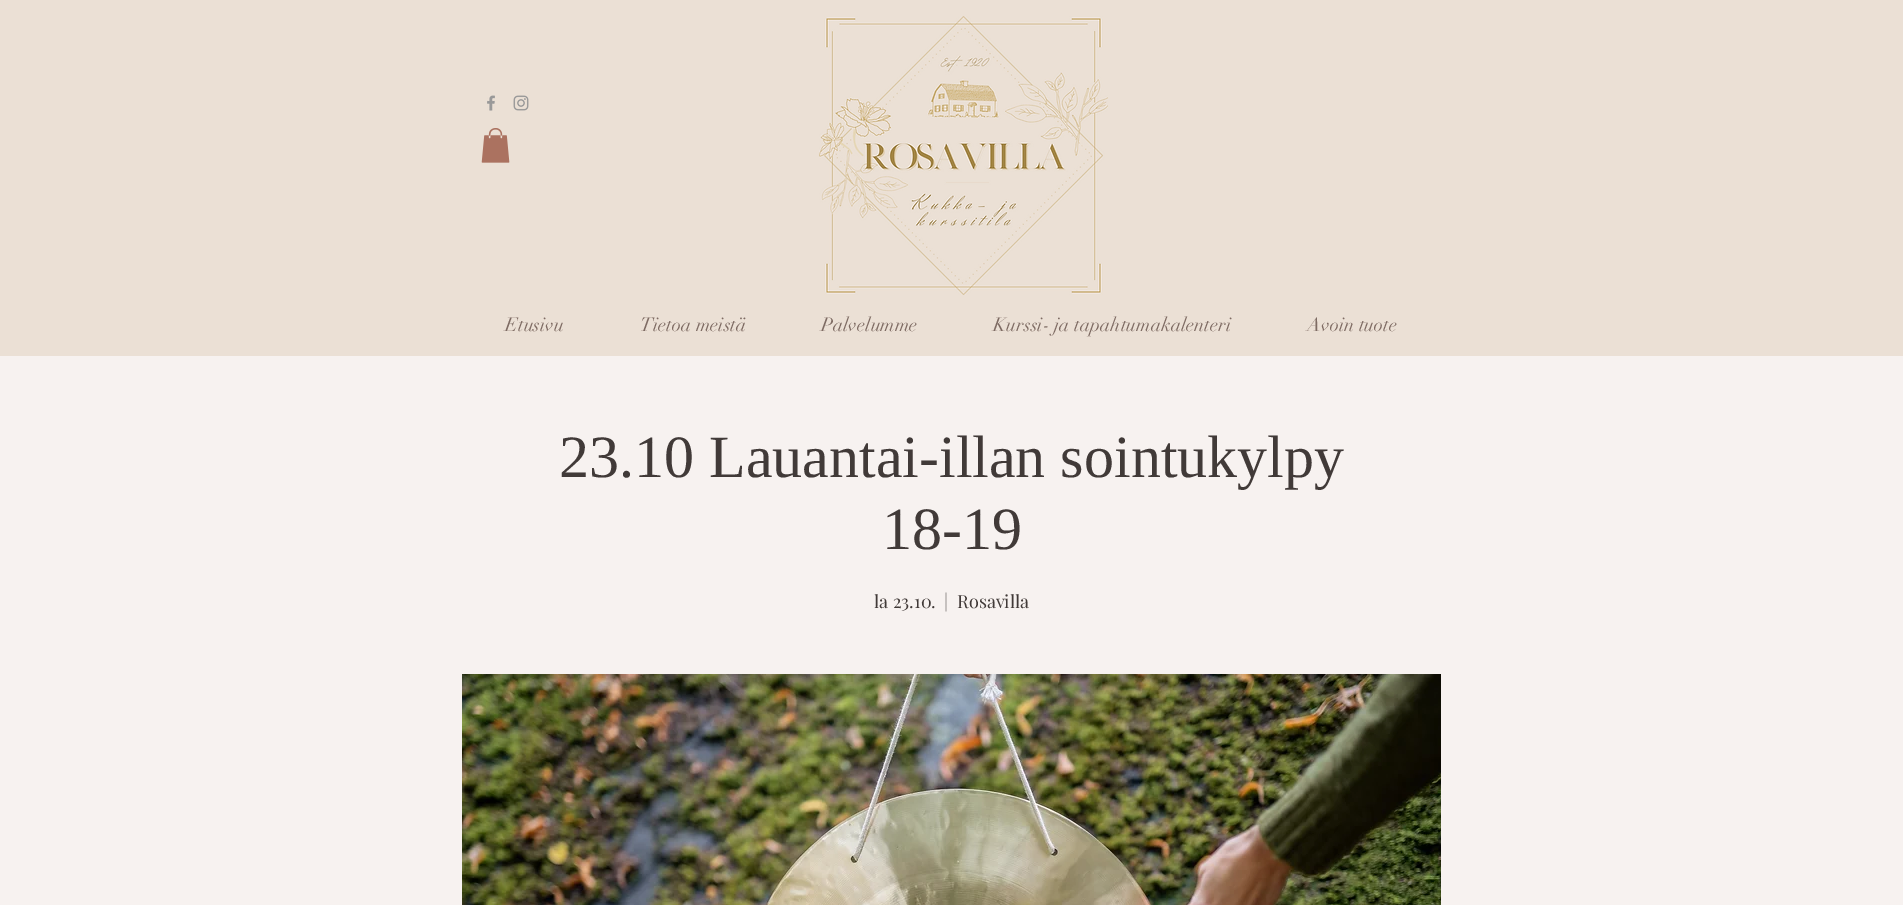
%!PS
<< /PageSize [1903 905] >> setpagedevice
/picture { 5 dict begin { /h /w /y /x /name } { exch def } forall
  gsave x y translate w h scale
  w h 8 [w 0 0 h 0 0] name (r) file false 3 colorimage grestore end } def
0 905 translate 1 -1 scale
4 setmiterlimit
0.922 0.878 0.835 setrgbcolor
0 0 1903 905 rectfill
(img1.rgb) 487 95 8 16 picture
(img2.rgb) 513 95 16 16 picture
(img3.rgb) 819 16 289 279 picture
(img4.rgb) 481 128 29 35 picture
/didot-Regular [19 0 0 -19 0 0] selectfont
0.494 0.42 0.388 setrgbcolor
505 331 moveto (Etusivu) show
640 331 moveto (Tietoa meistä) show
821 331 moveto (Palvelumme) show
993 331 moveto (Kurssi- ja tapahtumakalenteri) show
1307 331 moveto (Avoin tuote) show
0.969 0.949 0.941 setrgbcolor
0 356 1903 549 rectfill
/LiberationSerif-Regular [60 0 0 -60 0 0] selectfont
0.255 0.227 0.22 setrgbcolor
559 477 moveto (23.10 Lauantai-illan sointukylpy) show
882 549 moveto (18-19) show
/PlayfairDisplay-Regular [18 0 0 -18 0 0] selectfont
874 608 moveto (la 23.10.) show
944 608 moveto (|) show
957 608 moveto (Rosavilla) show
(img5.rgb) 462 674 979 231 picture
showpage
